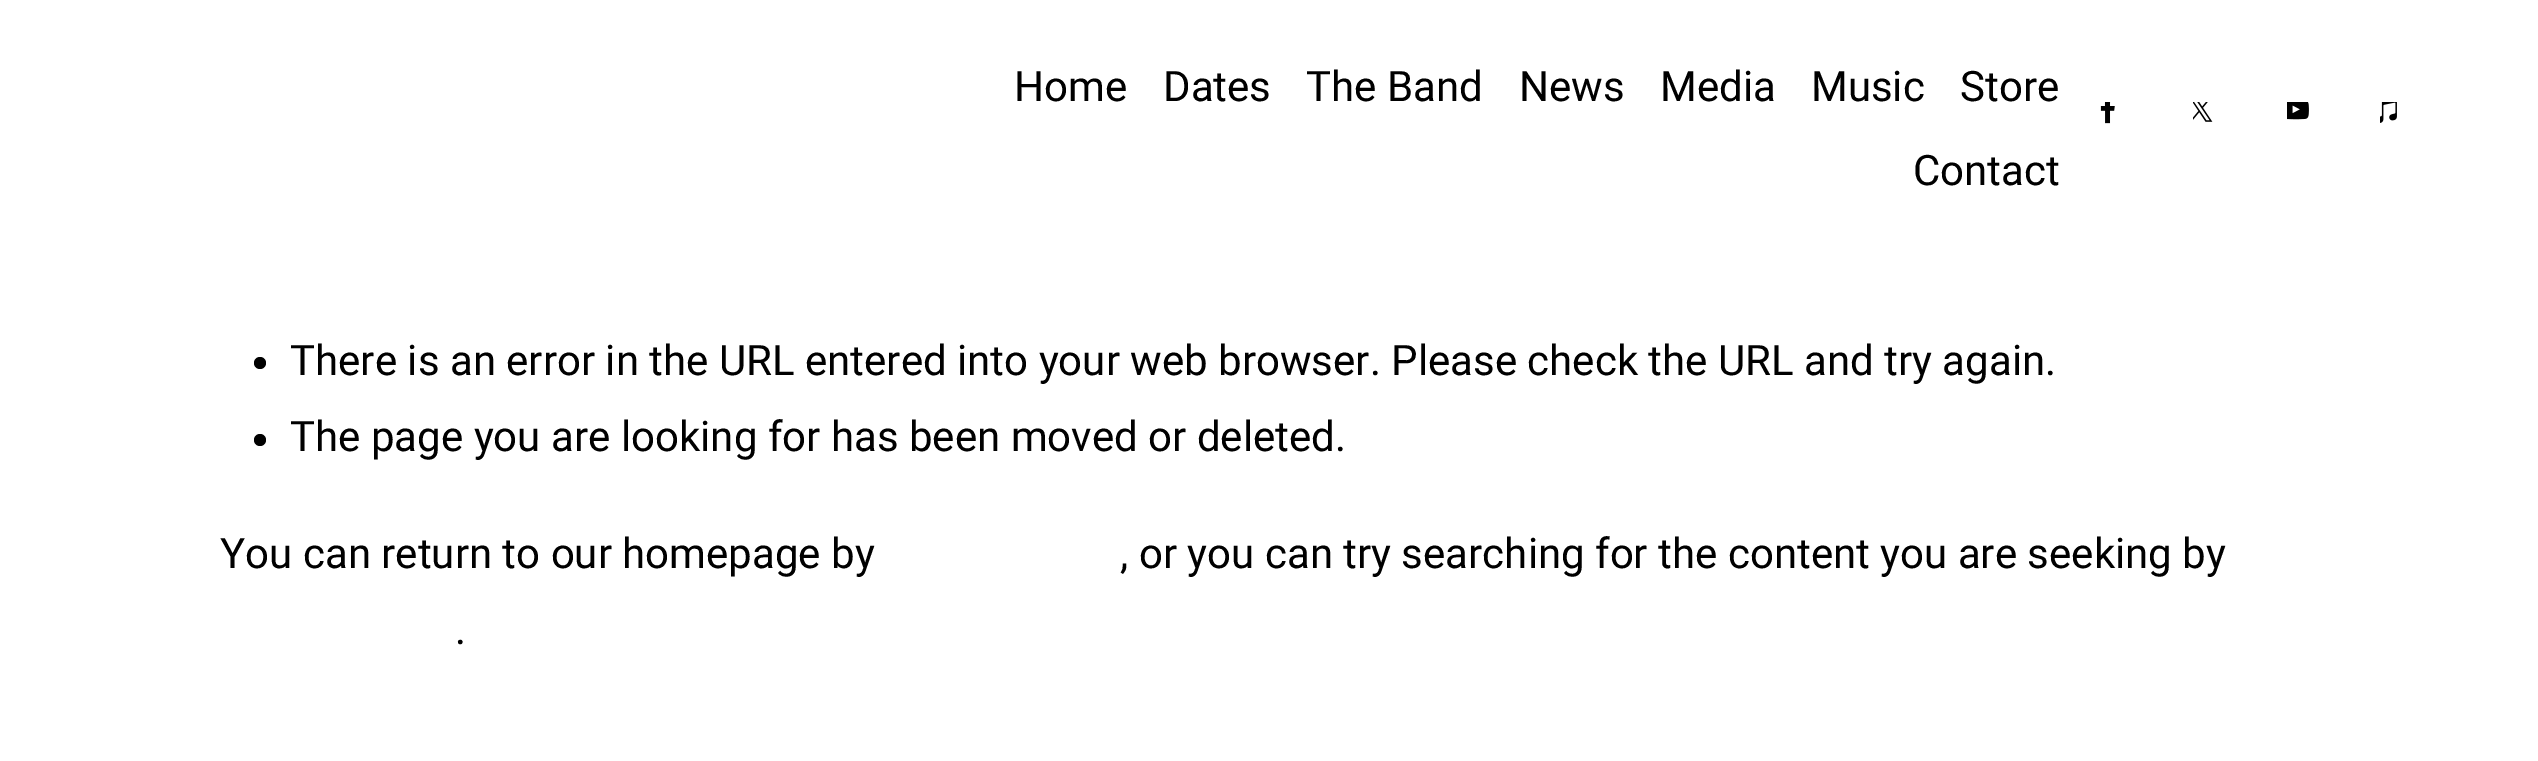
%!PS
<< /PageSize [2538 761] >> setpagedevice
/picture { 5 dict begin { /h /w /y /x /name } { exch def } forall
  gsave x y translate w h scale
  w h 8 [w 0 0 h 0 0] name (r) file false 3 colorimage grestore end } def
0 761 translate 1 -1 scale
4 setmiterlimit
1 setgray
0 0 2538 761 rectfill
/Roboto-Regular [42 0 0 -42 0 0] selectfont
0 setgray
1014 101 moveto (Home) show
1163 101 moveto (Dates) show
1306 101 moveto (The Band) show
1519 101 moveto (News) show
1660 101 moveto (Media) show
1811 101 moveto (Music) show
1960 101 moveto (Store) show
1913 185 moveto (Contact) show
(img1.rgb) 2100 102 15 22 picture
(img2.rgb) 2193 102 20 20 picture
(img3.rgb) 2287 102 22 18 picture
(img4.rgb) 2380 102 17 21 picture
newpath 260 363 6 0 360 arc closepath fill
290 375 moveto (There is an error in the URL entered into your web browser. Please check the URL and try again.) show
newpath 260 440 6 0 360 arc closepath fill
290 451 moveto (The page you are looking for has been moved or deleted.) show
220 568 moveto (You can return to our homepage by) show
1120 568 moveto (, or you can try searching for the content you are seeking by) show
455 644 moveto (.) show
showpage
